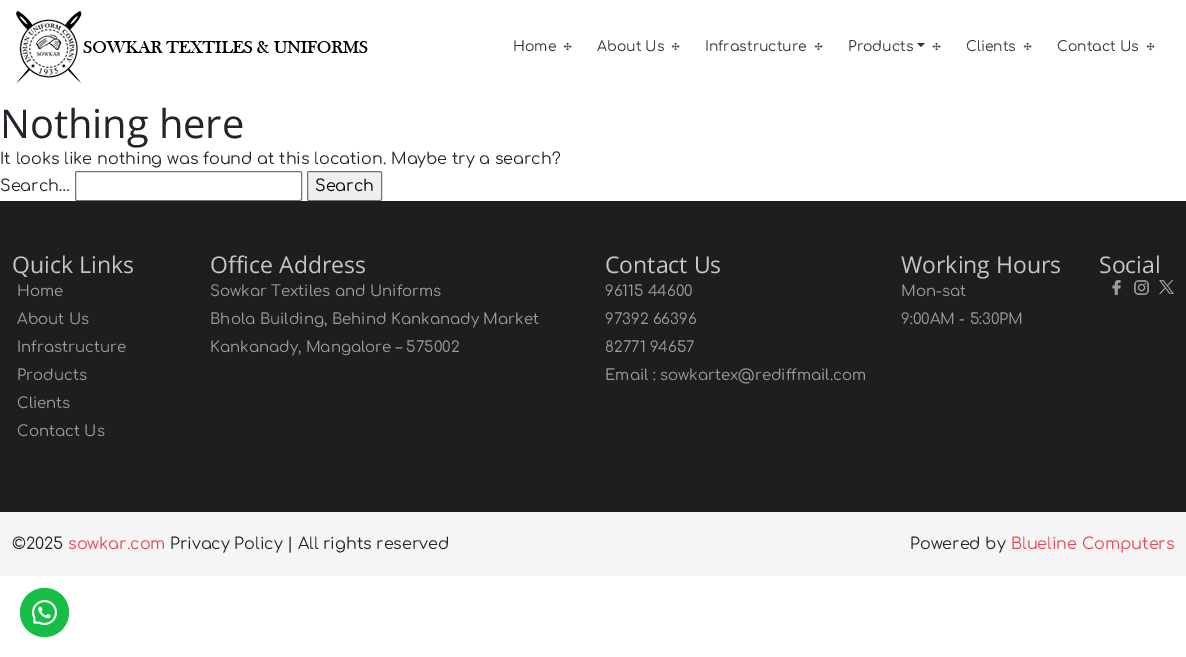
%!PS
<< /PageSize [1186 657] >> setpagedevice
/roundrect { 5 dict begin { /r /h /w /y /x } { exch def } forall
  x r add y moveto x w add y 2 copy h add r arct x w add y h add x 1 index r arct
  x y h add x y r arct x y 2 copy exch w add exch r arct closepath end } def
/picture { 5 dict begin { /h /w /y /x /name } { exch def } forall
  gsave x y translate w h scale
  w h 8 [w 0 0 h 0 0] name (r) file false 3 colorimage grestore end } def
0 657 translate 1 -1 scale
4 setmiterlimit
1 setgray
0 0 1186 657 rectfill
(img1.rgb) 16 11 352 73 picture
(img2.rgb) 563 42 9 9 picture
/Comfortaa-Regular [14 0 0 -14 0 0] selectfont
0.2 setgray
513 51 moveto (Home) show
(img2.rgb) 671 42 9 9 picture
597 51 moveto (About Us) show
(img2.rgb) 814 42 9 9 picture
705 51 moveto (Infrastructure) show
(img2.rgb) 932 42 9 9 picture
848 51 moveto (Products) show
newpath 917 43 moveto 925 43 lineto 921 47 lineto closepath fill
(img2.rgb) 1023 42 9 9 picture
966 51 moveto (Clients) show
(img2.rgb) 1146 42 9 9 picture
1057 51 moveto (Contact Us) show
/OpenSans-Regular [39.75 0 0 -39.75 0 0] selectfont
0.129 0.145 0.161 setrgbcolor
0 138 moveto (Nothing here) show
/Comfortaa-Regular [16 0 0 -16 0 0] selectfont
0 164 moveto (It looks like nothing was found at this location. Maybe try a search?) show
0 191 moveto (Search…) show
0.463 setgray
75.5 171.5 226 29 1.5 roundrect stroke
0.937 setgray
307.5 171.5 74 29 1.5 roundrect gsave fill grestore
0.463 setgray
stroke
0 setgray
315 191 moveto (Search) show
0.118 setgray
0 201 1186 311 rectfill
/OpenSans-Regular [23 0 0 -23 0 0] selectfont
0.773 setgray
12 273 moveto (Quick Links) show
/Comfortaa-Regular [15 0 0 -15 0 0] selectfont
0.616 setgray
17 296 moveto (Home) show
17 324 moveto (About Us) show
17 352 moveto (Infrastructure) show
17 380 moveto (Products) show
17 408 moveto (Clients) show
17 436 moveto (Contact Us) show
/OpenSans-Regular [23 0 0 -23 0 0] selectfont
0.773 setgray
210 273 moveto (Office Address) show
/Comfortaa-Regular [15 0 0 -15 0 0] selectfont
0.616 setgray
210 296 moveto (Sowkar Textiles and Uniforms) show
210 324 moveto (Bhola Building, Behind Kankanady Market) show
210 352 moveto (Kankanady, Mangalore – 575002) show
/OpenSans-Regular [23 0 0 -23 0 0] selectfont
0.773 setgray
605 273 moveto (Contact Us) show
/Comfortaa-Regular [15 0 0 -15 0 0] selectfont
0.616 setgray
605 296 moveto (96115 44600) show
605 324 moveto (97392 66396) show
605 352 moveto (82771 94657) show
605 380 moveto (Email : sowkartex@rediffmail.com) show
/OpenSans-Regular [23 0 0 -23 0 0] selectfont
0.773 setgray
901 273 moveto (Working Hours) show
/Comfortaa-Regular [15 0 0 -15 0 0] selectfont
0.616 setgray
901 296 moveto (Mon-sat) show
901 324 moveto (9:00AM - 5:30PM) show
/OpenSans-Regular [23 0 0 -23 0 0] selectfont
0.773 setgray
1099 273 moveto (Social) show
(img3.rgb) 1112 280 9 15 picture
(img4.rgb) 1134 280 15 15 picture
(img5.rgb) 1159 280 15 14 picture
0.961 setgray
0 512 1186 64 rectfill
/Comfortaa-Regular [16 0 0 -16 0 0] selectfont
0.129 0.145 0.161 setrgbcolor
12 549 moveto (©2025) show
0.914 0.282 0.341 setrgbcolor
68 549 moveto (sowkar.com) show
0.129 0.145 0.161 setrgbcolor
170 549 moveto (Privacy Policy | All rights reserved) show
910 549 moveto (Powered by) show
0.914 0.282 0.341 setrgbcolor
1011 549 moveto (Blueline Computers) show
0.086 0.745 0.271 setrgbcolor
newpath 44.5 612.5 24.5 0 360 arc closepath fill
(img6.rgb) 32 600 25 25 picture
showpage
